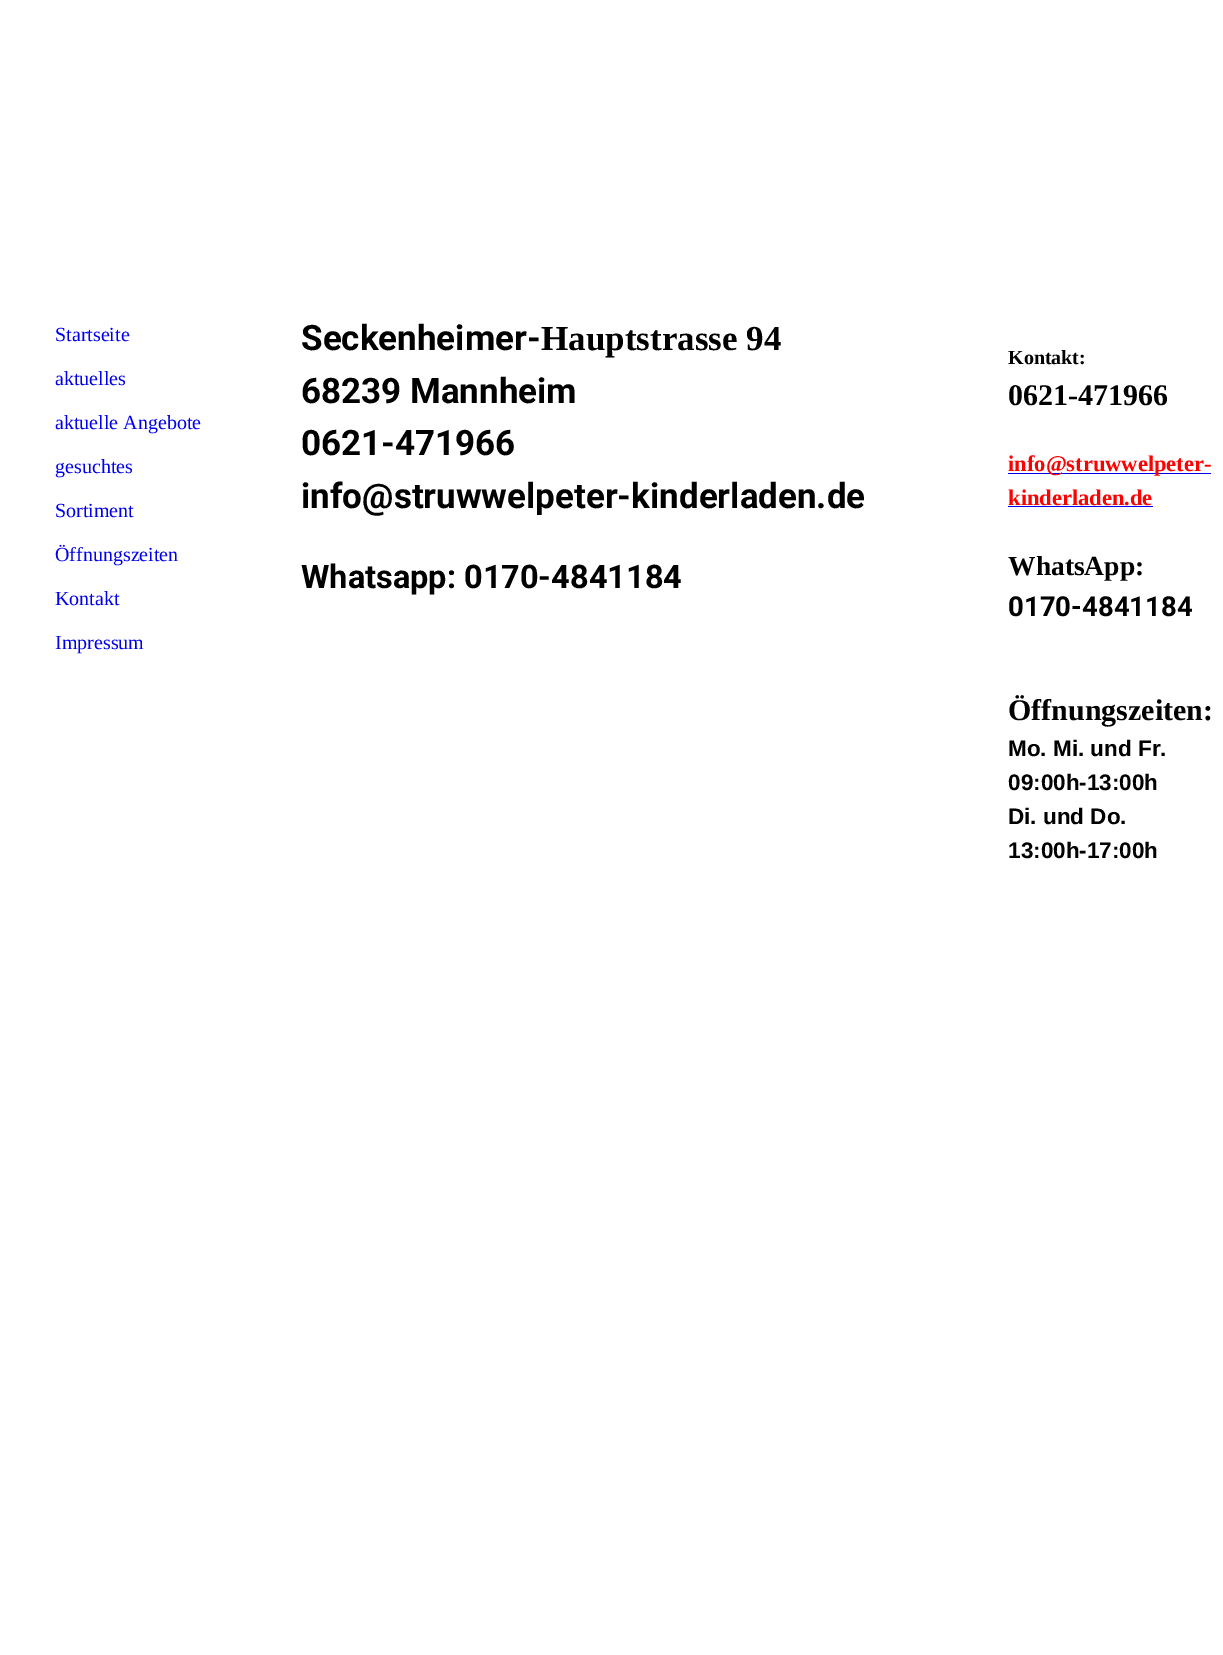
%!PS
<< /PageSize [1223 1655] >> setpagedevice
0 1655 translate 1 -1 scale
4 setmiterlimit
1 setgray
0 0 1223 1655 rectfill
/LiberationSerif-Regular [20 0 0 -20 0 0] selectfont
0 0 0.933 setrgbcolor
55 341 moveto (Startseite) show
55 385 moveto (aktuelles) show
55 429 moveto (aktuelle Angebote) show
55 473 moveto (gesuchtes) show
55 517 moveto (Sortiment) show
55 561 moveto (Öffnungszeiten) show
55 605 moveto (Kontakt) show
55 649 moveto (Impressum) show
/Roboto-Bold [35 0 0 -35 0 0] selectfont
0 setgray
301 350 moveto (Seckenheimer-) show
/LiberationSerif-Bold [35 0 0 -35 0 0] selectfont
541 350 moveto (Hauptstrasse 94) show
/Roboto-Bold [35 0 0 -35 0 0] selectfont
301 403 moveto (68239 Mannheim) show
301 455 moveto (0621-471966) show
301 508 moveto (info@struwwelpeter-kinderladen.de) show
/Roboto-Bold [32.5 0 0 -32.5 0 0] selectfont
301 588 moveto (Whatsapp: 0170-4841184) show
/LiberationSerif-Bold [20 0 0 -20 0 0] selectfont
1008 364 moveto (Kontakt:) show
/LiberationSerif-Bold [30 0 0 -30 0 0] selectfont
1008 405 moveto (0621-471966) show
0 0 0.933 setrgbcolor
1008 473 203 1 rectfill
/LiberationSerif-Bold [22.5 0 0 -22.5 0 0] selectfont
1 0 0 setrgbcolor
1008 471 moveto (info@struwwelpeter-) show
1008 505 moveto (kinderladen.de) show
0 0 0.933 setrgbcolor
1008 506 145 1 rectfill
/LiberationSerif-Bold [27.5 0 0 -27.5 0 0] selectfont
0 setgray
1008 575 moveto (WhatsApp:) show
/Roboto-Bold [27.5 0 0 -27.5 0 0] selectfont
1008 616 moveto (0170-4841184) show
/LiberationSerif-Bold [30 0 0 -30 0 0] selectfont
1008 720 moveto (Öffnungszeiten:) show
/LiberationSans-Bold [22.5 0 0 -22.5 0 0] selectfont
1008 756 moveto (Mo. Mi. und Fr.) show
1008 790 moveto (09:00h-13:00h) show
1008 824 moveto (Di. und Do.) show
1008 858 moveto (13:00h-17:00h) show
showpage
